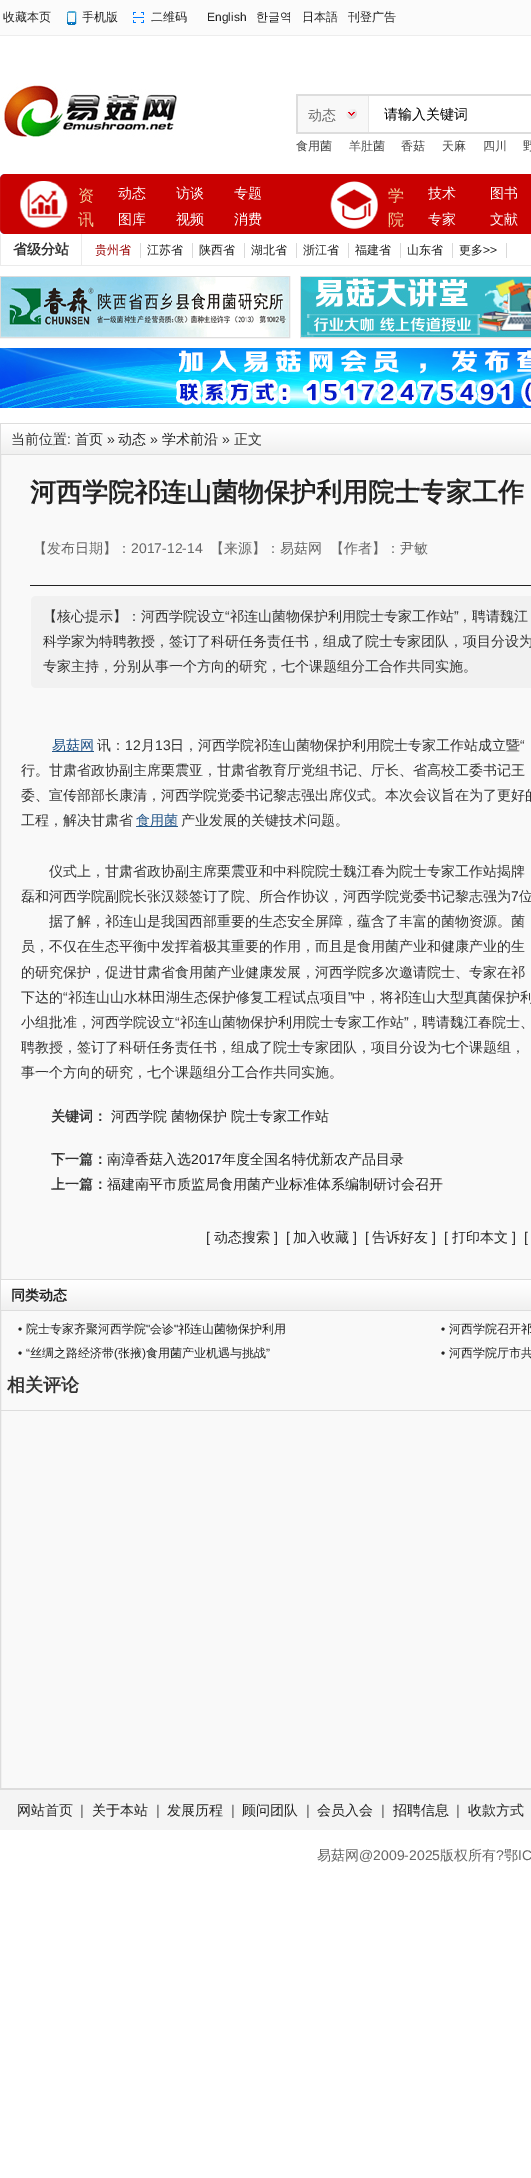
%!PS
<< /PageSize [531 2178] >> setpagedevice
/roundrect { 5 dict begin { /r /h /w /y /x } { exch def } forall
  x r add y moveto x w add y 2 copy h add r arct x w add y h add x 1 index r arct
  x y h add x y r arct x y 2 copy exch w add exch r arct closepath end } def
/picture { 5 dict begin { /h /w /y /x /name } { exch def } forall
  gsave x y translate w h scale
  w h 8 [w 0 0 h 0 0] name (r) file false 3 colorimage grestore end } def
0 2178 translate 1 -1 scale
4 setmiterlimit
1 setgray
0 0 531 2178 rectfill
0.984 setgray
0 0 531 35 rectfill
0.929 setgray
0 35 531 1 rectfill
/WenQuanYiZenHei-Medium [12 0 0 -12 0 0] selectfont
0.133 setgray
3 21 moveto (收藏本页) show
(img1.rgb) 67 11 10 14 picture
82 21 moveto (手机版) show
(img2.rgb) 133 12 11 11 picture
151 21 moveto (二维码) show
/LiberationSans-Regular [12 0 0 -12 0 0] selectfont
207 21 moveto (English) show
/WenQuanYiZenHei-Medium [12 0 0 -12 0 0] selectfont
256 21 moveto (한글역) show
302 21 moveto (日本語) show
348 21 moveto (刊登广告) show
(img3.rgb) 0 83 177 54 picture
0.867 setgray
296 94 235 2 rectfill
296 132 235 2 rectfill
296 94 2 40 rectfill
0.973 setgray
298 96 70 36 rectfill
(img4.rgb) 346 109 11 10 picture
0.906 setgray
368 96 1 36 rectfill
/WenQuanYiZenHei-Medium [14 0 0 -14 0 0] selectfont
0.4 setgray
308 120 moveto (动态) show
0 setgray
384 119 moveto (请输入关键词) show
/WenQuanYiZenHei-Medium [12 0 0 -12 0 0] selectfont
0.267 setgray
296 150 moveto (食用菌) show
349 150 moveto (羊肚菌) show
401 150 moveto (香菇) show
442 150 moveto (天麻) show
483 150 moveto (四川) show
523 150 moveto (野) show
(img5.rgb) 0 174 531 60 picture
(img6.rgb) 20 181 48 47 picture
/WenQuanYiZenHei-Medium [16 0 0 -16 0 0] selectfont
0.953 0.8 0.588 setrgbcolor
78 201 moveto (资) show
78 225 moveto (讯) show
/WenQuanYiZenHei-Medium [14 0 0 -14 0 0] selectfont
1 setgray
118 198 moveto (动态) show
176 198 moveto (访谈) show
234 198 moveto (专题) show
118 224 moveto (图库) show
176 224 moveto (视频) show
234 224 moveto (消费) show
(img7.rgb) 330 181 48 48 picture
/WenQuanYiZenHei-Medium [16 0 0 -16 0 0] selectfont
0.953 0.8 0.588 setrgbcolor
388 201 moveto (学) show
388 225 moveto (院) show
/WenQuanYiZenHei-Medium [14 0 0 -14 0 0] selectfont
1 setgray
428 198 moveto (技术) show
490 198 moveto (图书) show
428 224 moveto (专家) show
490 224 moveto (文献) show
0.922 setgray
0 265 531 1 rectfill
0 234 1 32 rectfill
81 234 1 31 rectfill
/WenQuanYiZenHei-Bold [14 0 0 -14 0 0] selectfont
0.2 setgray
13 254 moveto (省级分站) show
0.851 setgray
140 243 1 15 rectfill
/WenQuanYiZenHei-Medium [12 0 0 -12 0 0] selectfont
0.6 0 0 setrgbcolor
95 254 moveto (贵州省) show
0.851 setgray
192 243 1 15 rectfill
0.133 setgray
147 254 moveto (江苏省) show
0.851 setgray
244 243 1 15 rectfill
0.133 setgray
199 254 moveto (陕西省) show
0.851 setgray
296 243 1 15 rectfill
0.133 setgray
251 254 moveto (湖北省) show
0.851 setgray
348 243 1 15 rectfill
0.133 setgray
303 254 moveto (浙江省) show
0.851 setgray
400 243 1 15 rectfill
0.133 setgray
355 254 moveto (福建省) show
0.851 setgray
452 243 1 15 rectfill
0.133 setgray
407 254 moveto (山东省) show
0.851 setgray
506 243 1 15 rectfill
0.133 setgray
459 254 moveto (更多) show
/LiberationSans-Regular [12 0 0 -12 0 0] selectfont
483 254 moveto (>>) show
0.867 setgray
0.5 276.5 289 61 rectstroke
(img8.rgb) 1 277 288 60 picture
300.5 276.5 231 61 rectstroke
(img9.rgb) 301 277 230 60 picture
(img10.rgb) 0 348 531 60 picture
0.976 setgray
1 455 530 1333 rectfill
0.867 setgray
0.5 423.5 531 1365 rectstroke
(img11.rgb) 1 424 530 31 picture
/WenQuanYiZenHei-Medium [14 0 0 -14 0 0] selectfont
0.2 setgray
11 444 moveto (当前位置) show
/LiberationSans-Regular [14 0 0 -14 0 0] selectfont
67 444 moveto (:) show
/WenQuanYiZenHei-Medium [14 0 0 -14 0 0] selectfont
0.133 setgray
75 444 moveto (首页) show
/LiberationSans-Regular [14 0 0 -14 0 0] selectfont
0.2 setgray
107 444 moveto (») show
/WenQuanYiZenHei-Medium [14 0 0 -14 0 0] selectfont
0.133 setgray
118 444 moveto (动态) show
/LiberationSans-Regular [14 0 0 -14 0 0] selectfont
0.2 setgray
150 444 moveto (») show
/WenQuanYiZenHei-Medium [14 0 0 -14 0 0] selectfont
0.133 setgray
162 444 moveto (学术前沿) show
/LiberationSans-Regular [14 0 0 -14 0 0] selectfont
0.2 setgray
222 444 moveto (») show
/WenQuanYiZenHei-Medium [14 0 0 -14 0 0] selectfont
234 444 moveto (正文) show
0.133 setgray
30 585 501 1 rectfill
/WenQuanYiZenHei-Bold [26 0 0 -26 0 0] selectfont
30 501 moveto (河西学院祁连山菌物保护利用院士专家工作) show
/WenQuanYiZenHei-Medium [14 0 0 -14 0 0] selectfont
0.4 setgray
33 553 moveto (【发布日期】：) show
/LiberationSans-Regular [14 0 0 -14 0 0] selectfont
131 553 moveto (2017-12-14) show
/WenQuanYiZenHei-Medium [14 0 0 -14 0 0] selectfont
210 553 moveto (【来源】：易菇网) show
330 553 moveto (【作者】：尹敏) show
0.945 setgray
31 596 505 92 5 roundrect fill
0.2 setgray
43 621 moveto (【核心提示】：河西学院设立) show
/LiberationSans-Regular [14 0 0 -14 0 0] selectfont
225 621 moveto (“) show
/WenQuanYiZenHei-Medium [14 0 0 -14 0 0] selectfont
230 621 moveto (祁连山菌物保护利用院士专家工作站) show
/LiberationSans-Regular [14 0 0 -14 0 0] selectfont
454 621 moveto (”) show
/WenQuanYiZenHei-Medium [14 0 0 -14 0 0] selectfont
458 621 moveto (，聘请魏江) show
43 646 moveto (科学家为特聘教授，签订了科研任务责任书，组成了院士专家团队，项目分设为) show
43 671 moveto (专家主持，分别从事一个方向的研究，七个课题组分工合作共同实施。) show
0.133 0.333 0.533 setrgbcolor
52 751 42 1 rectfill
52 750 moveto (易菇网) show
0.2 setgray
97 750 moveto (讯：) show
/LiberationSans-Regular [14 0 0 -14 0 0] selectfont
125 750 moveto (12) show
/WenQuanYiZenHei-Medium [14 0 0 -14 0 0] selectfont
141 750 moveto (月) show
/LiberationSans-Regular [14 0 0 -14 0 0] selectfont
155 750 moveto (13) show
/WenQuanYiZenHei-Medium [14 0 0 -14 0 0] selectfont
170 750 moveto (日，河西学院祁连山菌物保护利用院士专家工作站成立暨) show
/LiberationSans-Regular [14 0 0 -14 0 0] selectfont
520 750 moveto (“) show
/WenQuanYiZenHei-Medium [14 0 0 -14 0 0] selectfont
21 775 moveto (行。甘肃省政协副主席栗震亚，甘肃省教育厅党组书记、厅长、省高校工委书记王) show
21 800 moveto (委、宣传部部长康清，河西学院党委书记黎志强出席仪式。本次会议旨在为了更好的) show
21 825 moveto (工程，解决甘肃省) show
0.133 0.333 0.533 setrgbcolor
136 826 42 1 rectfill
136 825 moveto (食用菌) show
0.2 setgray
181 825 moveto (产业发展的关键技术问题。) show
49 876 moveto (仪式上，甘肃省政协副主席栗震亚和中科院院士魏江春为院士专家工作站揭牌) show
21 901 moveto (磊和河西学院副院长张汉燚签订了院、所合作协议，河西学院党委书记黎志强为) show
/LiberationSans-Regular [14 0 0 -14 0 0] selectfont
511 901 moveto (7) show
/WenQuanYiZenHei-Medium [14 0 0 -14 0 0] selectfont
519 901 moveto (位) show
49 926 moveto (据了解，祁连山是我国西部重要的生态安全屏障，蕴含了丰富的菌物资源。菌) show
21 951 moveto (员，不仅在生态平衡中发挥着极其重要的作用，而且是食用菌产业和健康产业的生) show
21 977 moveto (的研究保护，促进甘肃省食用菌产业健康发展，河西学院多次邀请院士、专家在祁) show
21 1002 moveto (下达的) show
/LiberationSans-Regular [14 0 0 -14 0 0] selectfont
63 1002 moveto (“) show
/WenQuanYiZenHei-Medium [14 0 0 -14 0 0] selectfont
68 1002 moveto (祁连山山水林田湖生态保护修复工程试点项目) show
/LiberationSans-Regular [14 0 0 -14 0 0] selectfont
348 1002 moveto (”) show
/WenQuanYiZenHei-Medium [14 0 0 -14 0 0] selectfont
352 1002 moveto (中，将祁连山大型真菌保护利) show
21 1027 moveto (小组批准，河西学院设立) show
/LiberationSans-Regular [14 0 0 -14 0 0] selectfont
175 1027 moveto (“) show
/WenQuanYiZenHei-Medium [14 0 0 -14 0 0] selectfont
180 1027 moveto (祁连山菌物保护利用院士专家工作站) show
/LiberationSans-Regular [14 0 0 -14 0 0] selectfont
404 1027 moveto (”) show
/WenQuanYiZenHei-Medium [14 0 0 -14 0 0] selectfont
408 1027 moveto (，聘请魏江春院士、) show
21 1052 moveto (聘教授，签订了科研任务责任书，组成了院士专家团队，项目分设为七个课题组，) show
21 1077 moveto (事一个方向的研究，七个课题组分工合作共同实施。) show
/WenQuanYiZenHei-Bold [14 0 0 -14 0 0] selectfont
51 1121 moveto (关键词：) show
/WenQuanYiZenHei-Medium [14 0 0 -14 0 0] selectfont
0.133 setgray
111 1121 moveto (河西学院) show
171 1121 moveto (菌物保护) show
231 1121 moveto (院士专家工作站) show
/WenQuanYiZenHei-Bold [14 0 0 -14 0 0] selectfont
0.2 setgray
51 1164 moveto (下一篇：) show
/WenQuanYiZenHei-Medium [14 0 0 -14 0 0] selectfont
0.133 setgray
107 1164 moveto (南漳香菇入选) show
/LiberationSans-Regular [14 0 0 -14 0 0] selectfont
191 1164 moveto (2017) show
/WenQuanYiZenHei-Medium [14 0 0 -14 0 0] selectfont
222 1164 moveto (年度全国名特优新农产品目录) show
/WenQuanYiZenHei-Bold [14 0 0 -14 0 0] selectfont
0.2 setgray
51 1189 moveto (上一篇：) show
/WenQuanYiZenHei-Medium [14 0 0 -14 0 0] selectfont
0.133 setgray
107 1189 moveto (福建南平市质监局食用菌产业标准体系编制研讨会召开) show
/LiberationSans-Regular [14 0 0 -14 0 0] selectfont
0.2 setgray
206 1242 moveto ([) show
/WenQuanYiZenHei-Medium [14 0 0 -14 0 0] selectfont
0.133 setgray
214 1242 moveto (动态搜索) show
/LiberationSans-Regular [14 0 0 -14 0 0] selectfont
0.2 setgray
274 1242 moveto (]  [) show
/WenQuanYiZenHei-Medium [14 0 0 -14 0 0] selectfont
0.133 setgray
293 1242 moveto (加入收藏) show
/LiberationSans-Regular [14 0 0 -14 0 0] selectfont
0.2 setgray
353 1242 moveto (]  [) show
/WenQuanYiZenHei-Medium [14 0 0 -14 0 0] selectfont
0.133 setgray
372 1242 moveto (告诉好友) show
/LiberationSans-Regular [14 0 0 -14 0 0] selectfont
0.2 setgray
432 1242 moveto (]  [) show
/WenQuanYiZenHei-Medium [14 0 0 -14 0 0] selectfont
0.133 setgray
452 1242 moveto (打印本文) show
/LiberationSans-Regular [14 0 0 -14 0 0] selectfont
0.2 setgray
512 1242 moveto (]  [) show
(img11.rgb) 1 1280 530 31 picture
0.867 setgray
1 1279 530 1 rectfill
/WenQuanYiZenHei-Bold [14 0 0 -14 0 0] selectfont
0.133 setgray
11 1300 moveto (同类动态) show
/WenQuanYiZenHei-Medium [12 0 0 -12 0 0] selectfont
26 1333 moveto (院士专家齐聚河西学院) show
/LiberationSans-Regular [12 0 0 -12 0 0] selectfont
146 1333 moveto (") show
/WenQuanYiZenHei-Medium [12 0 0 -12 0 0] selectfont
150 1333 moveto (会诊) show
/LiberationSans-Regular [12 0 0 -12 0 0] selectfont
174 1333 moveto (") show
/WenQuanYiZenHei-Medium [12 0 0 -12 0 0] selectfont
178 1333 moveto (祁连山菌物保护利用) show
/LiberationSans-Regular [12 0 0 -12 0 0] selectfont
18 1333 moveto (•) show
441 1333 moveto (•) show
/WenQuanYiZenHei-Medium [12 0 0 -12 0 0] selectfont
449 1333 moveto (河西学院召开祁) show
/LiberationSans-Regular [12 0 0 -12 0 0] selectfont
18 1357 moveto (• “) show
/WenQuanYiZenHei-Medium [12 0 0 -12 0 0] selectfont
30 1357 moveto (丝绸之路经济带) show
/LiberationSans-Regular [12 0 0 -12 0 0] selectfont
114 1357 moveto (\() show
/WenQuanYiZenHei-Medium [12 0 0 -12 0 0] selectfont
118 1357 moveto (张掖) show
/LiberationSans-Regular [12 0 0 -12 0 0] selectfont
142 1357 moveto (\)) show
/WenQuanYiZenHei-Medium [12 0 0 -12 0 0] selectfont
146 1357 moveto (食用菌产业机遇与挑战) show
/LiberationSans-Regular [12 0 0 -12 0 0] selectfont
266 1357 moveto (”) show
441 1357 moveto (•) show
/WenQuanYiZenHei-Medium [12 0 0 -12 0 0] selectfont
449 1357 moveto (河西学院厅市共) show
0.867 setgray
1 1410 530 1 rectfill
/WenQuanYiZenHei-Bold [18 0 0 -18 0 0] selectfont
0.2 setgray
7 1391 moveto (相关评论) show
0.957 setgray
0 1790 531 40 rectfill
0.867 setgray
0 1789 531 1 rectfill
/WenQuanYiZenHei-Medium [14 0 0 -14 0 0] selectfont
0.133 setgray
17 1815 moveto (网站首页) show
/LiberationSans-Regular [14 0 0 -14 0 0] selectfont
0.4 setgray
80 1815 moveto (|) show
/WenQuanYiZenHei-Medium [14 0 0 -14 0 0] selectfont
0.133 setgray
92 1815 moveto (关于本站) show
/LiberationSans-Regular [14 0 0 -14 0 0] selectfont
0.4 setgray
156 1815 moveto (|) show
/WenQuanYiZenHei-Medium [14 0 0 -14 0 0] selectfont
0.133 setgray
167 1815 moveto (发展历程) show
/LiberationSans-Regular [14 0 0 -14 0 0] selectfont
0.4 setgray
231 1815 moveto (|) show
/WenQuanYiZenHei-Medium [14 0 0 -14 0 0] selectfont
0.133 setgray
242 1815 moveto (顾问团队) show
/LiberationSans-Regular [14 0 0 -14 0 0] selectfont
0.4 setgray
306 1815 moveto (|) show
/WenQuanYiZenHei-Medium [14 0 0 -14 0 0] selectfont
0.133 setgray
317 1815 moveto (会员入会) show
/LiberationSans-Regular [14 0 0 -14 0 0] selectfont
0.4 setgray
381 1815 moveto (|) show
/WenQuanYiZenHei-Medium [14 0 0 -14 0 0] selectfont
0.133 setgray
393 1815 moveto (招聘信息) show
/LiberationSans-Regular [14 0 0 -14 0 0] selectfont
0.4 setgray
456 1815 moveto (|) show
/WenQuanYiZenHei-Medium [14 0 0 -14 0 0] selectfont
0.133 setgray
468 1815 moveto (收款方式) show
0.4 setgray
317 1860 moveto (易菇网) show
/LiberationSans-Regular [14 0 0 -14 0 0] selectfont
359 1860 moveto (@2009-2025) show
/WenQuanYiZenHei-Medium [14 0 0 -14 0 0] selectfont
440 1860 moveto (版权所有) show
/LiberationSans-Regular [14 0 0 -14 0 0] selectfont
496 1860 moveto (?) show
/WenQuanYiZenHei-Medium [14 0 0 -14 0 0] selectfont
504 1860 moveto (鄂) show
/LiberationSans-Regular [14 0 0 -14 0 0] selectfont
518 1860 moveto (IC) show
showpage
